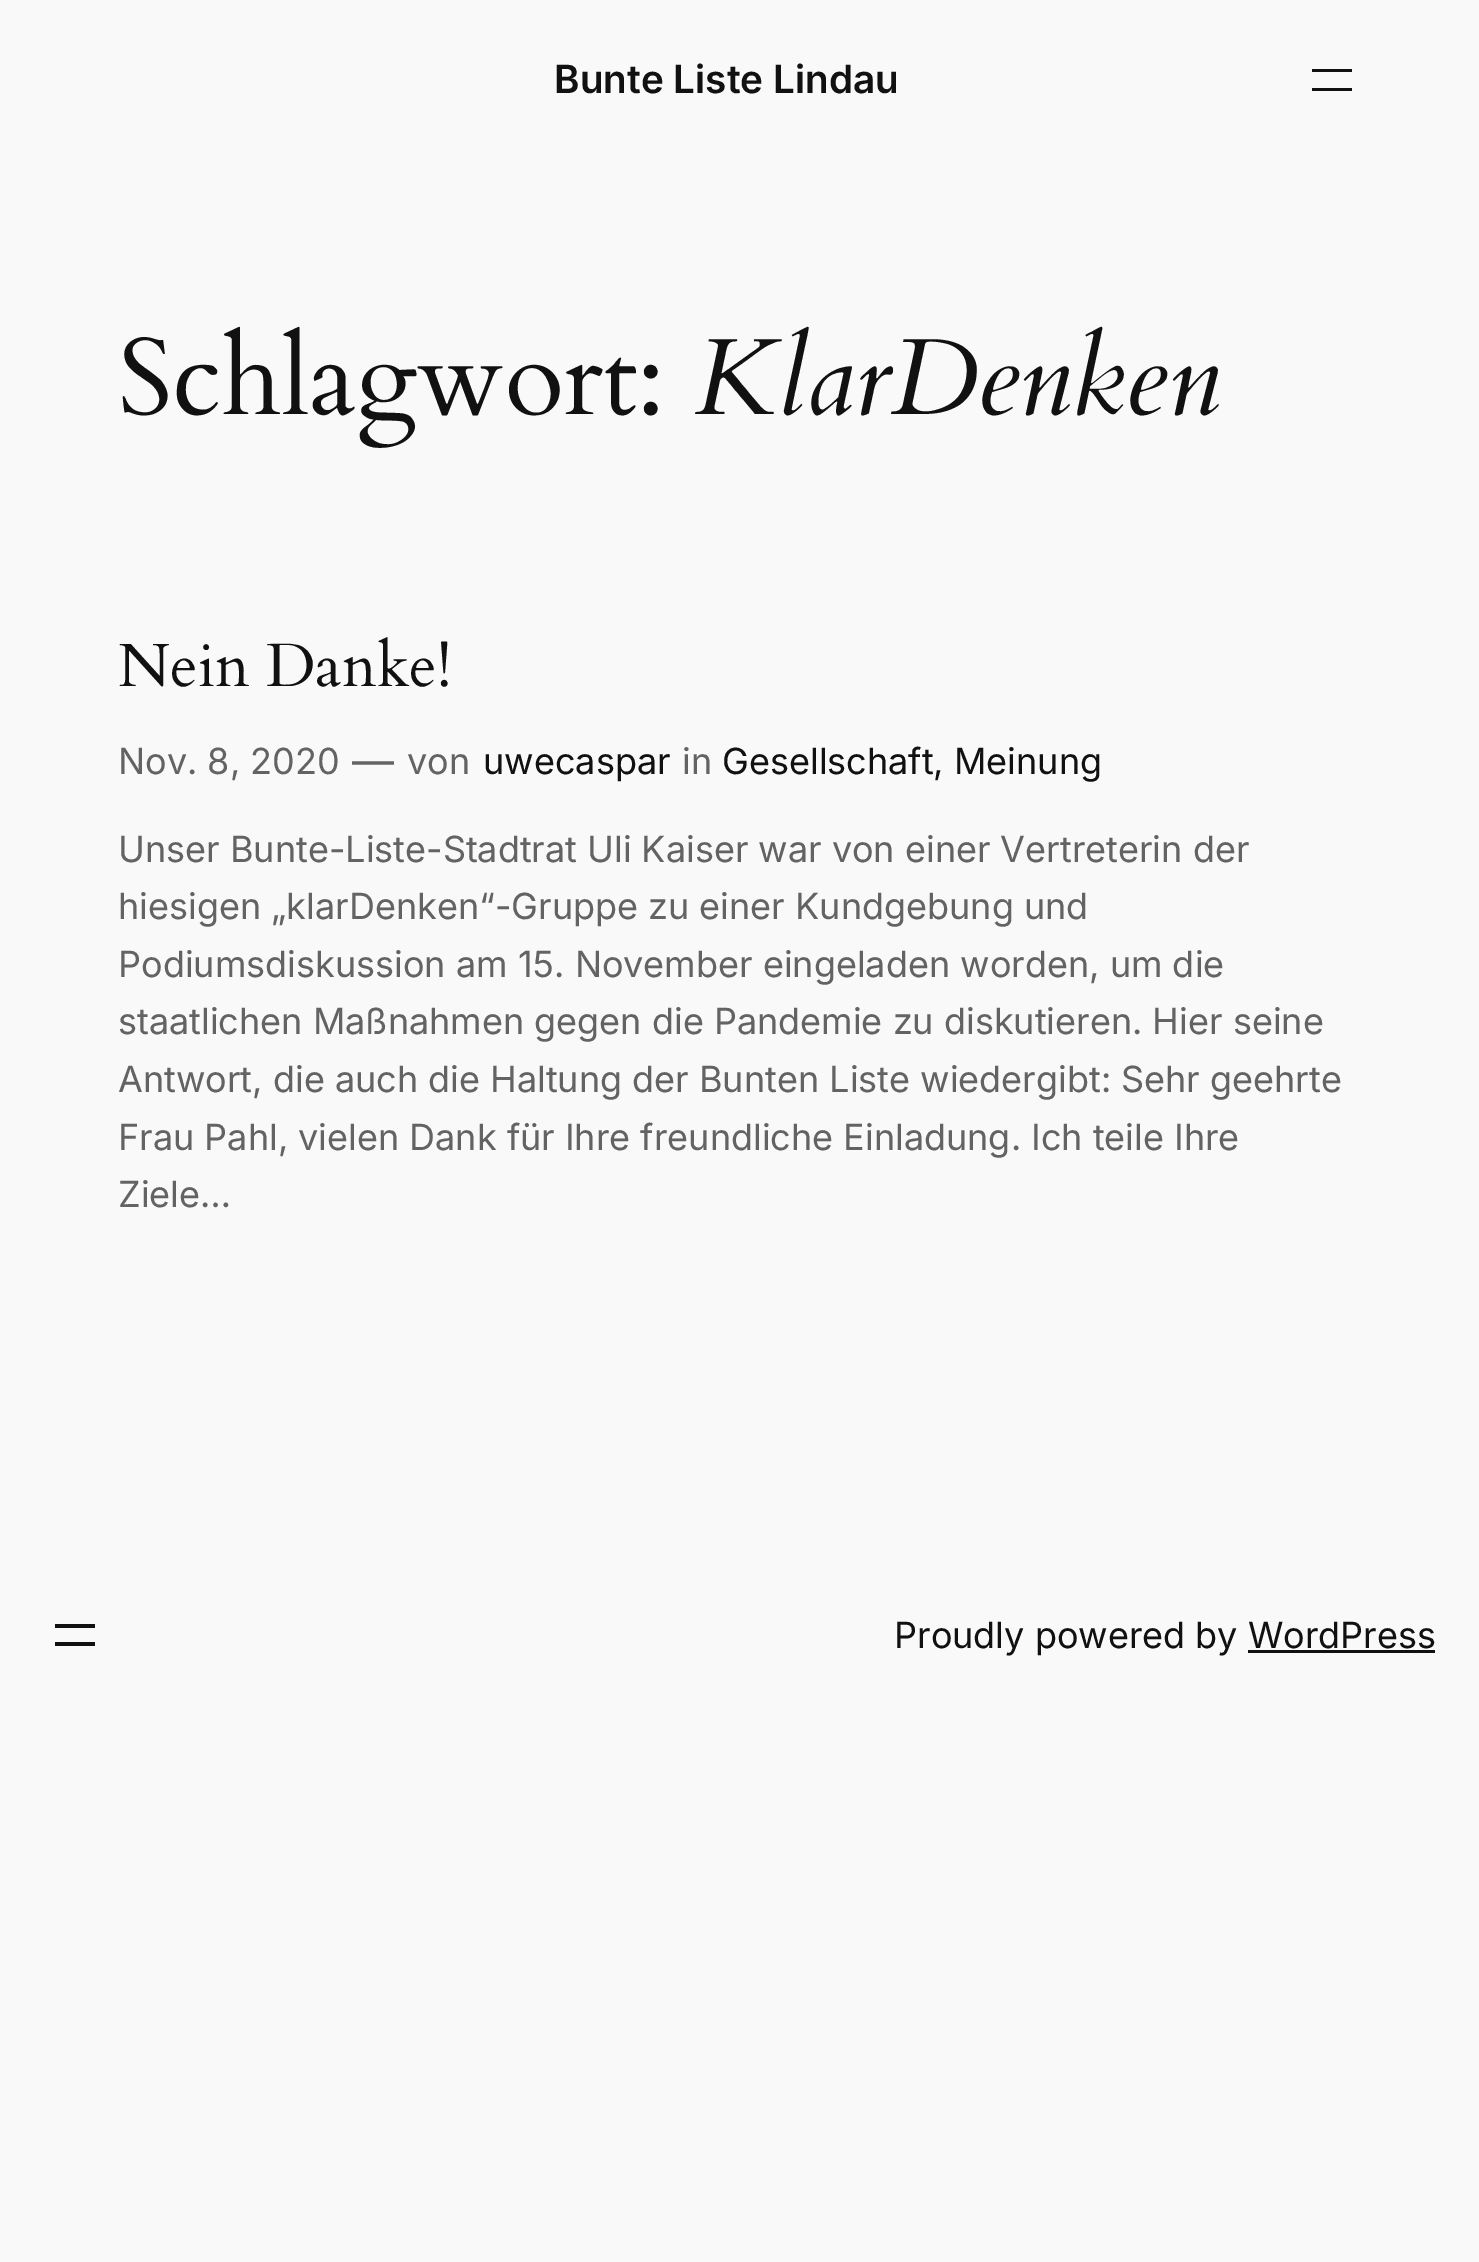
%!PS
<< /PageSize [1479 2262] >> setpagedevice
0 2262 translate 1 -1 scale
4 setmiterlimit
0.976 setgray
0 0 1479 2262 rectfill
/Inter-SemiBold [38.75 0 0 -38.75 0 0] selectfont
0.067 setgray
554 93 moveto (Bunte Liste Lindau) show
1312 69 40 3 rectfill
1312 88 40 3 rectfill
/Cardo-Regular [108.75 0 0 -108.75 0 0] selectfont
118 414 moveto (Schlagwort:) show
/Cardo-Italic [108.75 0 0 -108.75 0 0] selectfont
694 414 moveto (KlarDenken) show
/Cardo-Regular [61 0 0 -61 0 0] selectfont
118 686 moveto (Nein Danke!) show
/Inter-Regular [36 0 0 -36 0 0] selectfont
0.388 setgray
118 774 moveto (Nov. 8, 2020) show
/Inter-Regular [42 0 0 -42 0 0] selectfont
352 776 moveto (—) show
/Inter-Regular [36 0 0 -36 0 0] selectfont
407 774 moveto (von) show
0.067 setgray
483 774 moveto (uwecaspar) show
0.388 setgray
682 774 moveto (in) show
0.067 setgray
722 774 moveto (Gesellschaft, Meinung) show
0.388 setgray
118 862 moveto (Unser Bunte-Liste-Stadtrat Uli Kaiser war von einer Vertreterin der) show
118 919 moveto (hiesigen „klarDenken“-Gruppe zu einer Kundgebung und) show
118 977 moveto (Podiumsdiskussion am 15. November eingeladen worden, um die) show
118 1034 moveto (staatlichen Maßnahmen gegen die Pandemie zu diskutieren. Hier seine) show
118 1092 moveto (Antwort, die auch die Haltung der Bunten Liste wiedergibt: Sehr geehrte) show
118 1150 moveto (Frau Pahl, vielen Dank für Ihre freundliche Einladung. Ich teile Ihre) show
118 1207 moveto (Ziele…) show
0.067 setgray
55 1624 40 4 rectfill
55 1642 40 4 rectfill
894 1648 moveto (Proudly powered by WordPress) show
1248 1650 187 3 rectfill
showpage
